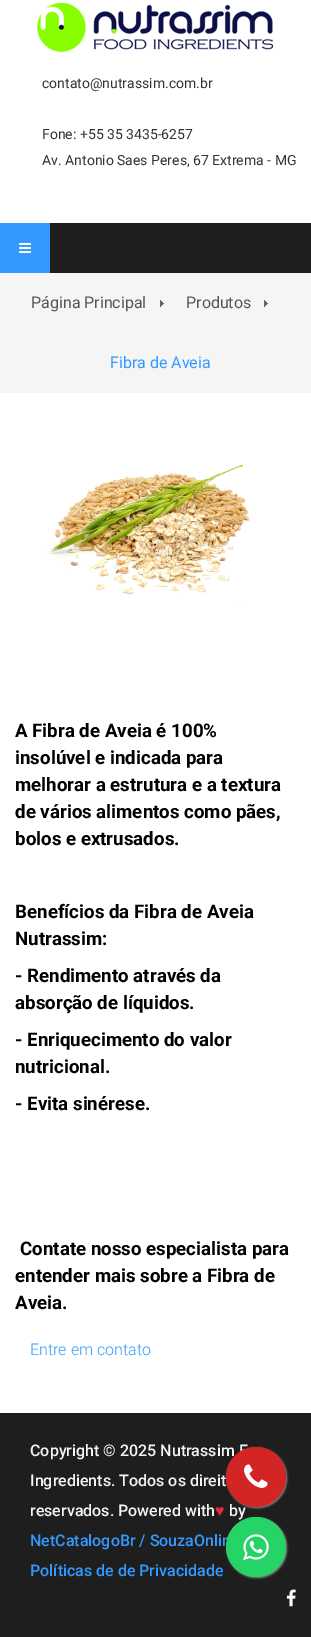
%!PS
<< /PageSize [311 1637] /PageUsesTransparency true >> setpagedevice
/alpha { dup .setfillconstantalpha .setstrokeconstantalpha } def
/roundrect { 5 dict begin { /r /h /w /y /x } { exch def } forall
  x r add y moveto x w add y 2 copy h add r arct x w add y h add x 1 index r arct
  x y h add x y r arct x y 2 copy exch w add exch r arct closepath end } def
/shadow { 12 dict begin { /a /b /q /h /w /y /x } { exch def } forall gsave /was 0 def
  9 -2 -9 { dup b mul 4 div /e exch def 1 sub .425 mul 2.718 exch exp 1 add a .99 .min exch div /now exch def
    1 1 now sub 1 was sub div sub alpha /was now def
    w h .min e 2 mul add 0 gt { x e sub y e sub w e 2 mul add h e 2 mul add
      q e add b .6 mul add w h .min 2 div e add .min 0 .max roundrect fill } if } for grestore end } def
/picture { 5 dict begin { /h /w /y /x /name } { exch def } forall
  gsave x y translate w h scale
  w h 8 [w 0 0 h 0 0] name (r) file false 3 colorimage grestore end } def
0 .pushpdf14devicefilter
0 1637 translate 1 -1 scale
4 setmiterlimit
1 setgray
0 0 311 1637 rectfill
(img1.rgb) 37 3 236 49 picture
/Roboto-Regular [14 0 0 -14 0 0] selectfont
0.2 setgray
42 88 moveto (contato@nutrassim.com.br) show
42 139 moveto (Fone: +55 35 3435-6257) show
42 165 moveto (Av. Antonio Saes Peres, 67 Extrema - MG) show
0.118 setgray
50 223 261 50 rectfill
0.2 0.6 1 setrgbcolor
0 223 50 50 rectfill
(img2.rgb) 19 243 12 10 picture
0.961 setgray
0 273 311 120 rectfill
/Roboto-Regular [16 0 0 -16 0 0] selectfont
0.333 setgray
31 308 moveto (Página Principal) show
(img3.rgb) 160 300 4 7 picture
186 308 moveto (Produtos) show
(img3.rgb) 264 300 4 7 picture
0.2 0.6 1 setrgbcolor
110 368 moveto (Fibra de Aveia) show
(img4.rgb) 47 464 203 138 picture
/Roboto-Bold [18.7 0 0 -18.7 0 0] selectfont
0 setgray
15 737 moveto (A Fibra de Aveia é 100%) show
15 764 moveto (insolúvel e indicada para) show
15 791 moveto (melhorar a estrutura e a textura) show
15 818 moveto (de vários alimentos como pães,) show
15 845 moveto (bolos e extrusados.) show
15 918 moveto (Benefícios da Fibra de Aveia) show
15 945 moveto (Nutrassim:) show
15 982 moveto (- Rendimento através da) show
15 1009 moveto (absorção de líquidos.) show
15 1046 moveto (- Enriquecimento do valor) show
15 1073 moveto (nutricional.) show
15 1110 moveto (- Evita sinérese.) show
20 1255 moveto (Contate nosso especialista para) show
15 1282 moveto (entender mais sobre a Fibra de) show
15 1309 moveto (Aveia.) show
/Roboto-Light [16 0 0 -16 0 0] selectfont
0.2 0.6 1 setrgbcolor
30 1355 moveto (Entre em contato) show
0.118 setgray
0 1413 311 224 rectfill
/Roboto-Medium [16 0 0 -16 0 0] selectfont
0.957 setgray
30 1456 moveto (Copyright © 2025 Nutrassim F) show
30 1486 moveto (Ingredients. Todos os direit) show
30 1516 moveto (reservados. Powered with) show
/LiberationSans-Regular [16 0 0 -16 0 0] selectfont
0.878 0.173 0.247 setrgbcolor
215 1516 moveto (♥) show
/Roboto-Medium [16 0 0 -16 0 0] selectfont
0.957 setgray
229 1516 moveto (by) show
0.2 0.6 1 setrgbcolor
30 1546 moveto (NetCatalogoBr / SouzaOnlin) show
30 1576 moveto (Políticas de de Privacidade) show
(img5.rgb) 286 1589 10 18 picture
0.533 setgray
227 1448 60 60 30 1 1 shadow
0.827 0.145 0.145 setrgbcolor
newpath 256 1477 30 0 360 arc closepath fill
(img6.rgb) 244 1464 24 24 picture
0.533 setgray
227 1518 60 60 30 1 1 shadow
0.145 0.827 0.4 setrgbcolor
newpath 256 1547 30 0 360 arc closepath fill
(img7.rgb) 243 1534 26 27 picture
.poppdf14devicefilter showpage
